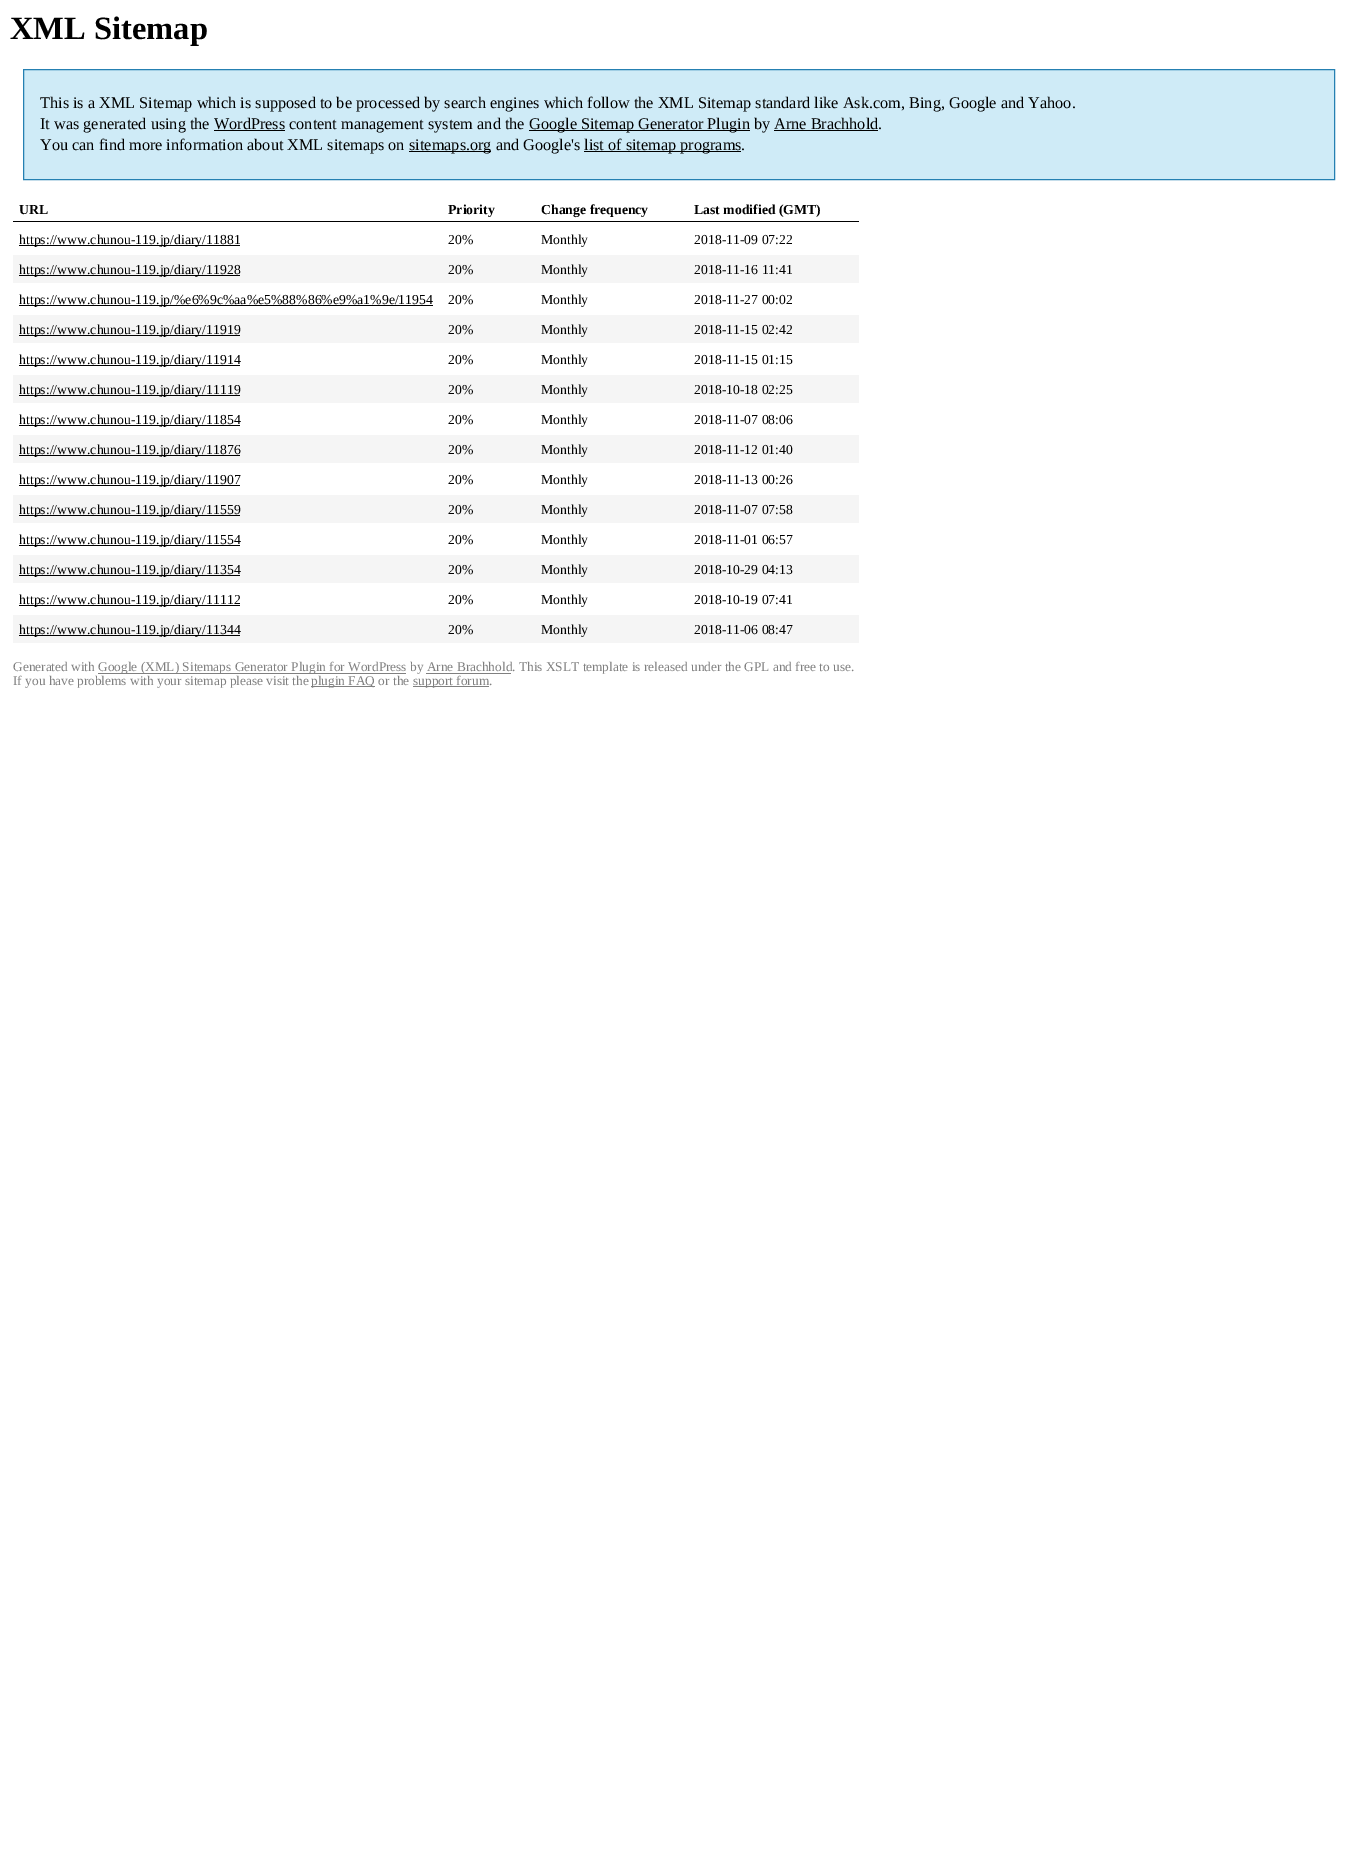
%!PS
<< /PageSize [1357 1873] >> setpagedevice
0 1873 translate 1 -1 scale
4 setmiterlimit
1 setgray
0 0 1357 1873 rectfill
/LiberationSerif-Bold [32.5 0 0 -32.5 0 0] selectfont
0 setgray
10 39 moveto (XML Sitemap) show
0.812 0.922 0.969 setrgbcolor
newpath 23.5 69.5 moveto 1334.5 69.5 lineto 1334.5 179.5 lineto 23.5 179.5 lineto closepath gsave fill grestore
0.145 0.502 0.698 setrgbcolor
stroke
/LiberationSerif-Regular [16.25 0 0 -16.25 0 0] selectfont
0 setgray
40 108 moveto (This is a XML Sitemap which is supposed to be processed by search engines which follow the XML Sitemap standard like Ask.com, Bing, Google and Yahoo.) show
40 129 moveto (It was generated using the WordPress content management system and the) show
529 130 221 1 rectfill
529 129 moveto (Google Sitemap Generator Plugin by Arne Brachhold.) show
214 130 71 1 rectfill
774 130 104 1 rectfill
40 150 moveto (You can find more information about XML sitemaps on) show
409 151 82 1 rectfill
409 150 moveto (sitemaps.org and Google's) show
584 151 157 1 rectfill
584 150 moveto (list of sitemap programs.) show
13 221 846 1 rectfill
/LiberationSerif-Bold [13.75 0 0 -13.75 0 0] selectfont
19 214 moveto (URL) show
448 214 moveto (Priority) show
541 214 moveto (Change frequency) show
694 214 moveto (Last modified \(GMT\)) show
19 245 221 1 rectfill
/LiberationSerif-Regular [13.75 0 0 -13.75 0 0] selectfont
19 244 moveto (https://www.chunou-119.jp/diary/11881) show
448 244 moveto (20%) show
541 244 moveto (Monthly) show
694 244 moveto (2018-11-09 07:22) show
0.961 setgray
13 255 846 28 rectfill
0 setgray
19 275 221 1 rectfill
19 274 moveto (https://www.chunou-119.jp/diary/11928) show
448 274 moveto (20%) show
541 274 moveto (Monthly) show
694 274 moveto (2018-11-16 11:41) show
19 305 414 1 rectfill
19 304 moveto (https://www.chunou-119.jp/%e6%9c%aa%e5%88%86%e9%a1%9e/11954) show
448 304 moveto (20%) show
541 304 moveto (Monthly) show
694 304 moveto (2018-11-27 00:02) show
0.961 setgray
13 315 846 28 rectfill
0 setgray
19 335 221 1 rectfill
19 334 moveto (https://www.chunou-119.jp/diary/11919) show
448 334 moveto (20%) show
541 334 moveto (Monthly) show
694 334 moveto (2018-11-15 02:42) show
19 365 221 1 rectfill
19 364 moveto (https://www.chunou-119.jp/diary/11914) show
448 364 moveto (20%) show
541 364 moveto (Monthly) show
694 364 moveto (2018-11-15 01:15) show
0.961 setgray
13 375 846 28 rectfill
0 setgray
19 395 221 1 rectfill
19 394 moveto (https://www.chunou-119.jp/diary/11119) show
448 394 moveto (20%) show
541 394 moveto (Monthly) show
694 394 moveto (2018-10-18 02:25) show
19 425 221 1 rectfill
19 424 moveto (https://www.chunou-119.jp/diary/11854) show
448 424 moveto (20%) show
541 424 moveto (Monthly) show
694 424 moveto (2018-11-07 08:06) show
0.961 setgray
13 435 846 28 rectfill
0 setgray
19 455 221 1 rectfill
19 454 moveto (https://www.chunou-119.jp/diary/11876) show
448 454 moveto (20%) show
541 454 moveto (Monthly) show
694 454 moveto (2018-11-12 01:40) show
19 485 221 1 rectfill
19 484 moveto (https://www.chunou-119.jp/diary/11907) show
448 484 moveto (20%) show
541 484 moveto (Monthly) show
694 484 moveto (2018-11-13 00:26) show
0.961 setgray
13 495 846 28 rectfill
0 setgray
19 515 221 1 rectfill
19 514 moveto (https://www.chunou-119.jp/diary/11559) show
448 514 moveto (20%) show
541 514 moveto (Monthly) show
694 514 moveto (2018-11-07 07:58) show
19 545 221 1 rectfill
19 544 moveto (https://www.chunou-119.jp/diary/11554) show
448 544 moveto (20%) show
541 544 moveto (Monthly) show
694 544 moveto (2018-11-01 06:57) show
0.961 setgray
13 555 846 28 rectfill
0 setgray
19 575 221 1 rectfill
19 574 moveto (https://www.chunou-119.jp/diary/11354) show
448 574 moveto (20%) show
541 574 moveto (Monthly) show
694 574 moveto (2018-10-29 04:13) show
19 605 221 1 rectfill
19 604 moveto (https://www.chunou-119.jp/diary/11112) show
448 604 moveto (20%) show
541 604 moveto (Monthly) show
694 604 moveto (2018-10-19 07:41) show
0.961 setgray
13 615 846 28 rectfill
0 setgray
19 635 221 1 rectfill
19 634 moveto (https://www.chunou-119.jp/diary/11344) show
448 634 moveto (20%) show
541 634 moveto (Monthly) show
694 634 moveto (2018-11-06 08:47) show
/LiberationSerif-Regular [13.33 0 0 -13.33 0 0] selectfont
0.502 setgray
13 671 moveto (Generated with) show
98 673 308 1 rectfill
98 671 moveto (Google \(XML\) Sitemaps Generator Plugin for WordPress by Arne Brachhold. This XSLT template is released under the GPL and free to use.) show
426 673 85 1 rectfill
13 685 moveto (If you have problems with your sitemap please visit the) show
311 686 64 1 rectfill
311 685 moveto (plugin FAQ or the) show
413 686 76 1 rectfill
413 685 moveto (support forum.) show
showpage
